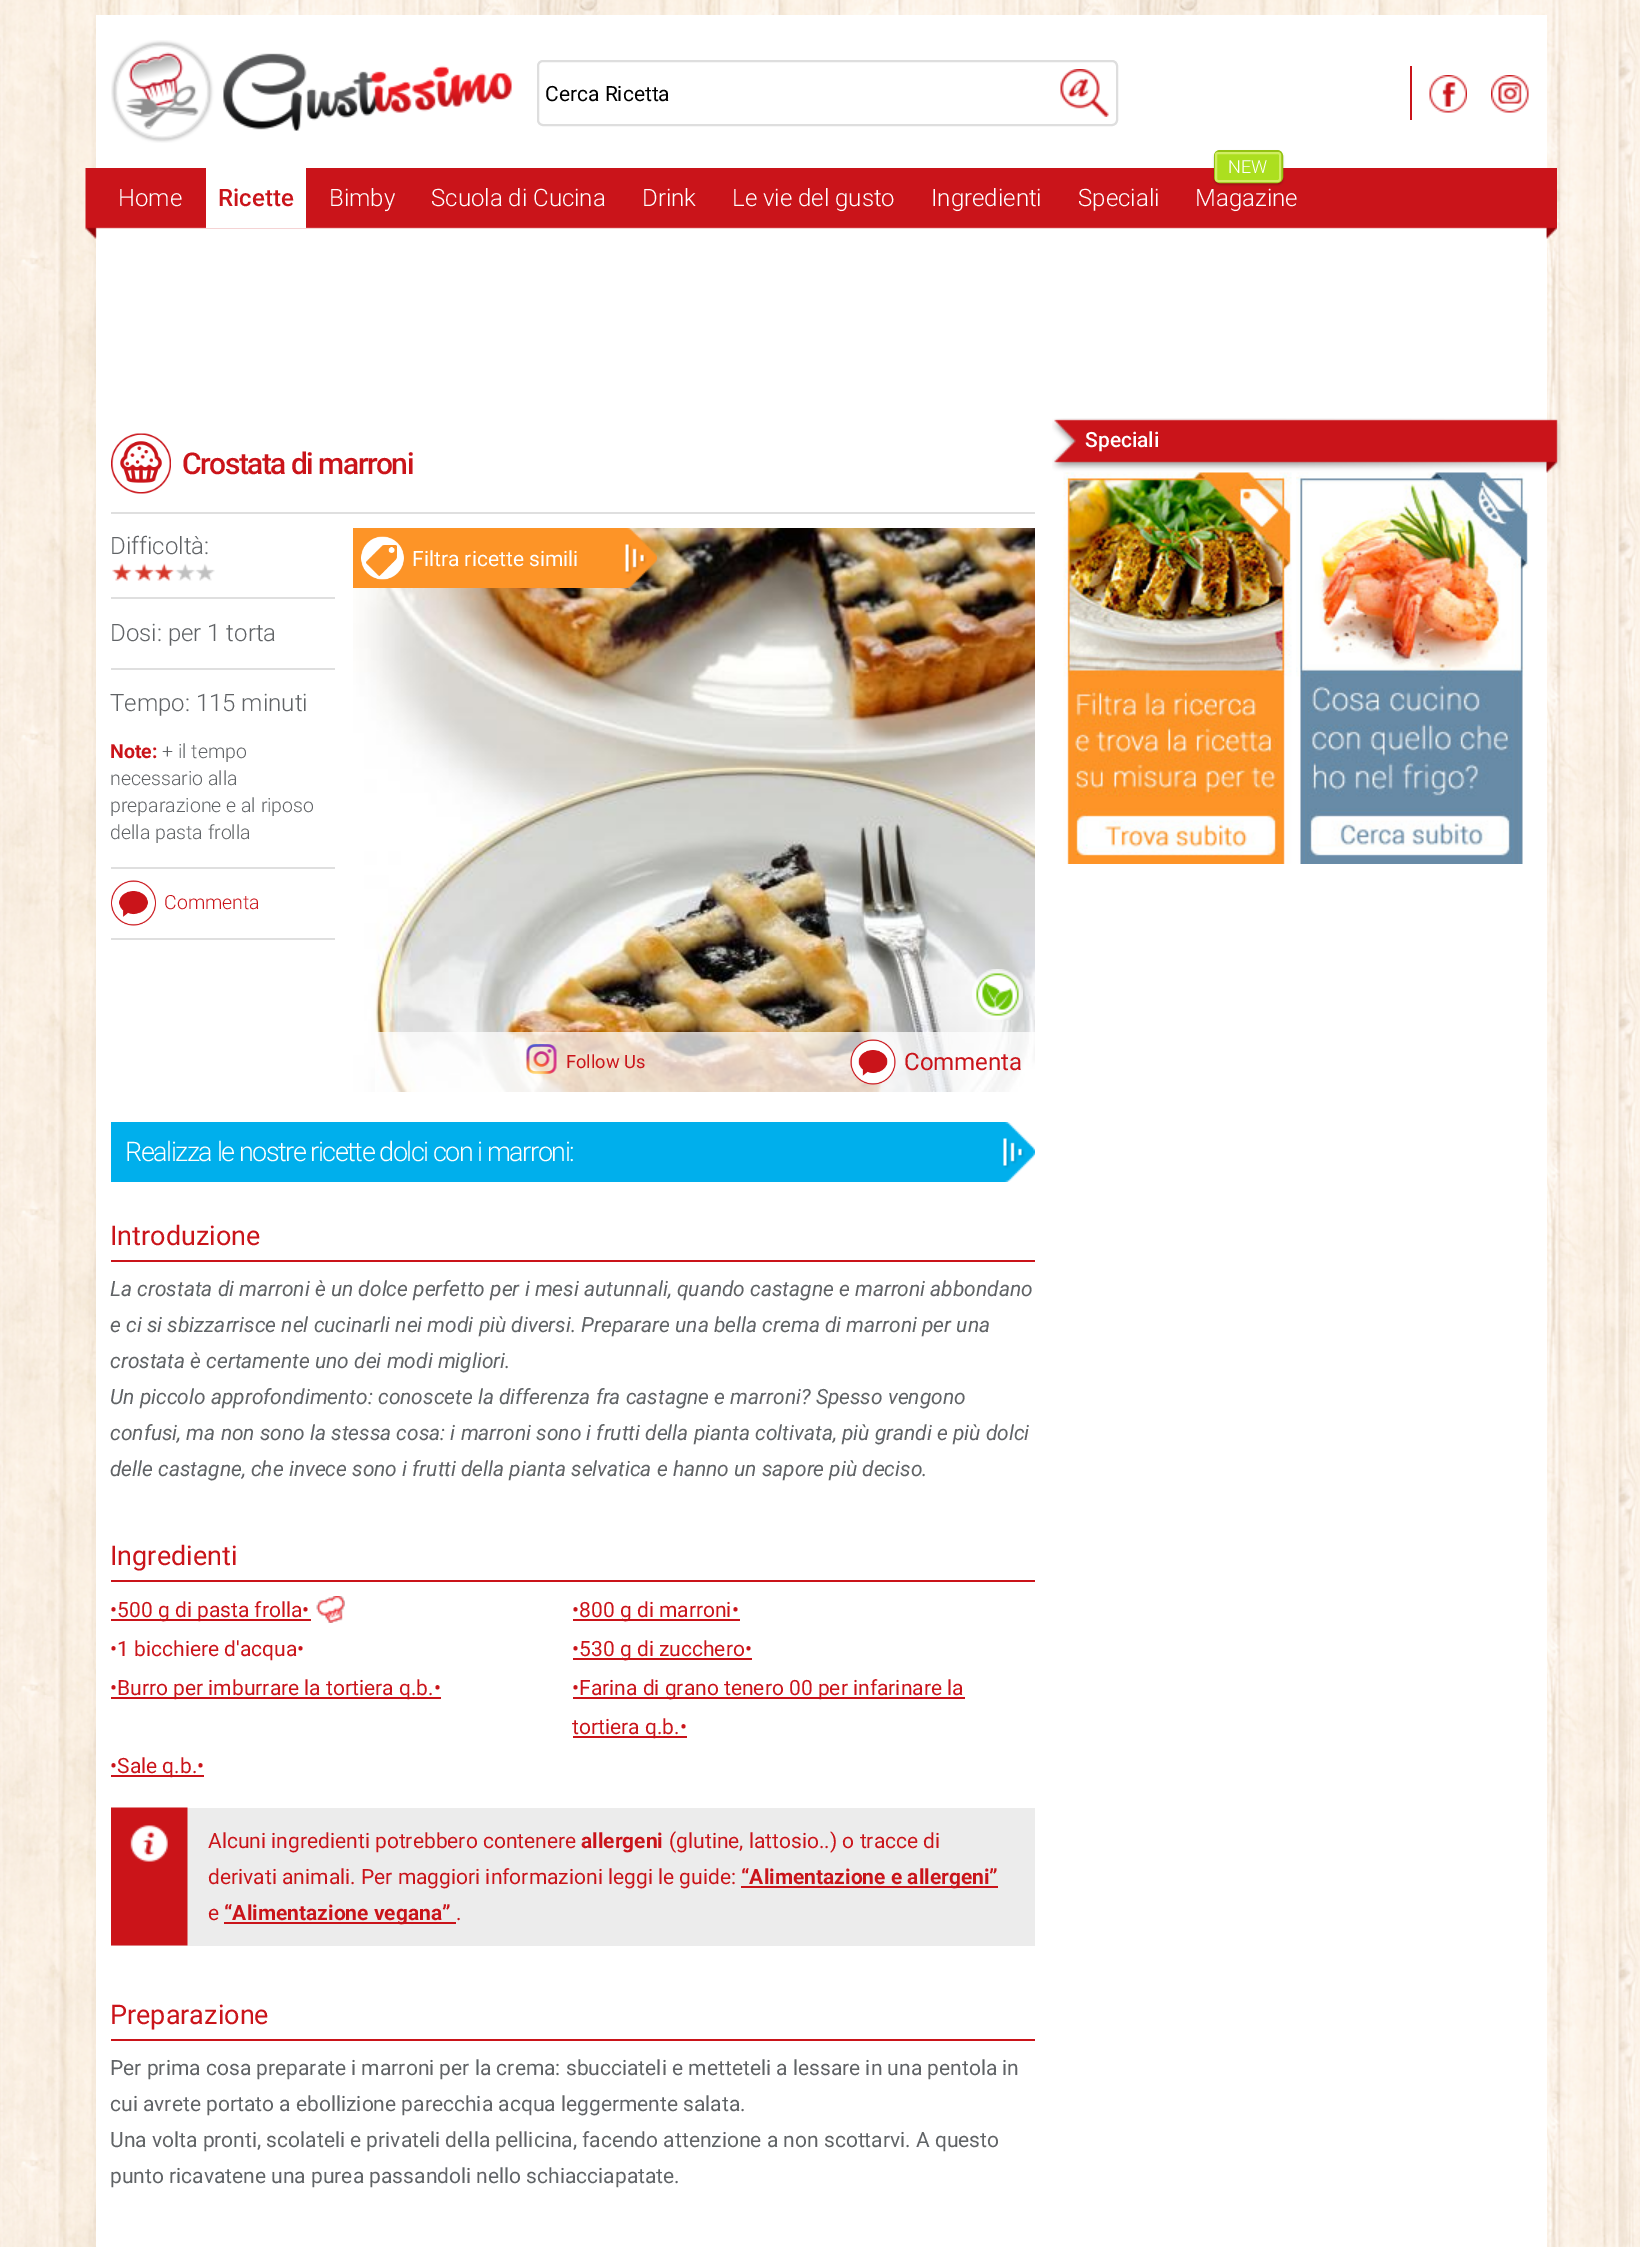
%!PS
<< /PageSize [1640 2247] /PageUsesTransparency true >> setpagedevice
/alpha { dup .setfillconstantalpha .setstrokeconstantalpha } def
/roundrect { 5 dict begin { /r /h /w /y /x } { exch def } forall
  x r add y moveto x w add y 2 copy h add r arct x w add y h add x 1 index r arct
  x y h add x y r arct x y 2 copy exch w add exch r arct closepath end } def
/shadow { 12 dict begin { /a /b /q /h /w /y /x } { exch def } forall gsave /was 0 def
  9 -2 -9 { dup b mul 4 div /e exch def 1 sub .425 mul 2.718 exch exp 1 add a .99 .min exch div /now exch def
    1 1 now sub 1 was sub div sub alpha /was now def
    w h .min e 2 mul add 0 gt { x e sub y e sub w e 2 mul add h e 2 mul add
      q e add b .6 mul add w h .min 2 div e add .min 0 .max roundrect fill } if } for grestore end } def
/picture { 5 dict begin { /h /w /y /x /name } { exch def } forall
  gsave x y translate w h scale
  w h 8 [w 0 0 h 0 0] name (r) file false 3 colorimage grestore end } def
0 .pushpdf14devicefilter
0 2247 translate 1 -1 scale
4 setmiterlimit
1 setgray
0 0 1640 2247 rectfill
(img1.rgb) 0 0 1640 2247 picture
96 15 1451 2232 rectfill
(img2.rgb) 111 40 401 103 picture
0.871 setgray
2 setlinewidth
538 61 579 64 5 roundrect stroke
/Roboto-Regular [21 0 0 -21 0 0] selectfont
0 setgray
545 101 moveto (Cerca Ricetta) show
(img3.rgb) 1060 69 49 48 picture
0.792 0.078 0.102 setrgbcolor
1410 66 2 54 rectfill
(img4.rgb) 1429 75 38 38 picture
(img5.rgb) 1491 75 38 38 picture
(img6.rgb) 85 168 1472 71 picture
/Roboto-Light [24 0 0 -24 0 0] selectfont
1 setgray
118 206 moveto (Home) show
206 168 100 60 rectfill
/Roboto-Medium [24 0 0 -24 0 0] selectfont
0.792 0.078 0.102 setrgbcolor
218 206 moveto (Ricette) show
/Roboto-Light [24 0 0 -24 0 0] selectfont
1 setgray
329 206 moveto (Bimby) show
431 206 moveto (Scuola di Cucina) show
642 206 moveto (Drink) show
732 206 moveto (Le vie del gusto) show
931 206 moveto (Ingredienti) show
1078 206 moveto (Speciali) show
0 setgray
1214 152 69 33 6 1 0.2 shadow
0.58 0.765 0.071 setrgbcolor
1215 151 67 31 5 roundrect stroke
gsave
1215 152 66 30 3 roundrect clip newpath
0.675 0.875 0.122 setrgbcolor
1215 153 66 27 rectfill
grestore
0.82 0.933 0.388 setrgbcolor
1216 153 64 28 2 roundrect stroke
/Roboto-Light [18 0 0 -18 0 0] selectfont
1 setgray
1228 173 moveto (NEW) show
/Roboto-Light [24 0 0 -24 0 0] selectfont
1195 206 moveto (Magazine) show
(img8.rgb) 1063 472 229 392 picture
(img9.rgb) 1296 472 233 392 picture
(img7.rgb) 1052 418 509 55 picture
/Roboto-Medium [21 0 0 -21 0 0] selectfont
1085 447 moveto (Speciali) show
0.875 setgray
111 512 924 2 rectfill
(img10.rgb) 111 433 60 61 picture
/Roboto-Medium [30 0 0 -30 0 0] selectfont
0.792 0.078 0.102 setrgbcolor
182 474 moveto -1.5 0 (Crostata di marroni) ashow
0.875 setgray
111 597 224 2 rectfill
/Roboto-Light [24 0 0 -24 0 0] selectfont
0.376 0.388 0.4 setrgbcolor
110 554 moveto (Difficoltà:) show
(img11.rgb) 112 563 103 18 picture
0.875 setgray
111 668 224 2 rectfill
0.376 0.388 0.4 setrgbcolor
110 641 moveto (Dosi: per 1 torta) show
110 711 moveto (Tempo: 115 minuti) show
0.875 setgray
111 867 224 2 rectfill
/Roboto-Bold [19.5 0 0 -19.5 0 0] selectfont
0.792 0.078 0.102 setrgbcolor
110 758 moveto (Note:) show
/Roboto-Light [19.5 0 0 -19.5 0 0] selectfont
0.376 0.388 0.4 setrgbcolor
162 758 moveto (+ il tempo) show
110 785 moveto (necessario alla) show
110 812 moveto (preparazione e al riposo) show
110 839 moveto (della pasta frolla) show
0.875 setgray
111 938 224 2 rectfill
(img12.rgb) 111 880 45 46 picture
0.792 0.078 0.102 setrgbcolor
164 909 moveto (Commenta) show
(img13.rgb) 353 528 682 564 picture
0.992 0.58 0.153 setrgbcolor
353 528 270 60 rectfill
(img14.rgb) 361 536 43 44 picture
/Roboto-Regular [21 0 0 -21 0 0] selectfont
1 setgray
412 566 moveto (Filtra ricette simili) show
(img15.rgb) 623 528 34 60 picture
(img16.rgb) 972 969 51 51 picture
(img17.rgb) 976 973 43 43 picture
0.75 alpha
375 1032 660 60 rectfill
1 alpha
(img18.rgb) 526 1044 31 30 picture
/Roboto-Regular [18.25 0 0 -18.25 0 0] selectfont
0.792 0.078 0.102 setrgbcolor
566 1068 moveto (Follow Us) show
(img19.rgb) 850 1039 46 46 picture
/Roboto-Regular [24 0 0 -24 0 0] selectfont
904 1070 moveto (Commenta) show
0 0.686 0.925 setrgbcolor
111 1122 890 60 rectfill
/Roboto-Light [27 0 0 -27 0 0] selectfont
1 setgray
125 1161 moveto -1.5 0 (Realizza le nostre ricette dolci con i marroni:) ashow
(img20.rgb) 1001 1122 34 60 picture
0.792 0.078 0.102 setrgbcolor
111 1260 924 2 rectfill
/Roboto-Regular [27 0 0 -27 0 0] selectfont
110 1245 moveto (Introduzione) show
/Roboto-Italic [21 0 0 -21 0 0] selectfont
0.376 0.388 0.4 setrgbcolor
110 1296 moveto (La crostata di marroni è un dolce perfetto per i mesi autunnali, quando castagne e marroni abbondano) show
110 1332 moveto (e ci si sbizzarrisce nel cucinarli nei modi più diversi. Preparare una bella crema di marroni per una) show
110 1368 moveto (crostata è certamente uno dei modi migliori.) show
110 1404 moveto (Un piccolo approfondimento: conoscete la differenza fra castagne e marroni? Spesso vengono) show
110 1440 moveto (confusi, ma non sono la stessa cosa: i marroni sono i frutti della pianta coltivata, più grandi e più dolci) show
110 1476 moveto (delle castagne, che invece sono i frutti della pianta selvatica e hanno un sapore più deciso.) show
0.792 0.078 0.102 setrgbcolor
111 1580 924 2 rectfill
/Roboto-Regular [27 0 0 -27 0 0] selectfont
110 1565 moveto (Ingredienti) show
111 1619 200 2 rectfill
/Roboto-Regular [21 0 0 -21 0 0] selectfont
110 1617 moveto (•500 g di pasta frolla•) show
(img21.rgb) 316 1596 29 27 picture
573 1619 167 2 rectfill
572 1617 moveto (•800 g di marroni•) show
110 1656 moveto (•1 bicchiere d'acqua•) show
573 1658 179 2 rectfill
572 1656 moveto (•530 g di zucchero•) show
111 1697 330 2 rectfill
110 1695 moveto (•Burro per imburrare la tortiera q.b.•) show
573 1697 392 2 rectfill
572 1695 moveto (•Farina di grano tenero 00 per infarinare la) show
573 1736 114 2 rectfill
572 1734 moveto (tortiera q.b.•) show
111 1775 93 2 rectfill
110 1773 moveto (•Sale q.b.•) show
0.925 setgray
111 1808 924 138 rectfill
(img22.rgb) 111 1807 77 139 picture
0.792 0.078 0.102 setrgbcolor
208 1848 moveto (Alcuni ingredienti potrebbero contenere) show
/Roboto-Bold [21 0 0 -21 0 0] selectfont
581 1848 moveto (allergeni) show
/Roboto-Regular [21 0 0 -21 0 0] selectfont
669 1848 moveto (\(glutine, lattosio..\) o tracce di) show
208 1884 moveto (derivati animali. Per maggiori informazioni leggi le guide:) show
741 1886 257 2 rectfill
/Roboto-Bold [21 0 0 -21 0 0] selectfont
741 1884 moveto (“Alimentazione e allergeni”) show
/Roboto-Regular [21 0 0 -21 0 0] selectfont
208 1920 moveto (e) show
224 1922 232 2 rectfill
/Roboto-Bold [21 0 0 -21 0 0] selectfont
224 1920 moveto (“Alimentazione vegana”) show
/Roboto-Regular [21 0 0 -21 0 0] selectfont
456 1920 moveto (.) show
111 2039 924 2 rectfill
/Roboto-Regular [27 0 0 -27 0 0] selectfont
110 2024 moveto (Preparazione) show
/Roboto-Regular [21 0 0 -21 0 0] selectfont
0.376 0.388 0.4 setrgbcolor
110 2075 moveto (Per prima cosa preparate i marroni per la crema: sbucciateli e metteteli a lessare in una pentola in) show
110 2111 moveto (cui avrete portato a ebollizione parecchia acqua leggermente salata.) show
110 2147 moveto (Una volta pronti, scolateli e privateli della pellicina, facendo attenzione a non scottarvi. A questo) show
110 2183 moveto (punto ricavatene una purea passandoli nello schiacciapatate.) show
.poppdf14devicefilter showpage
